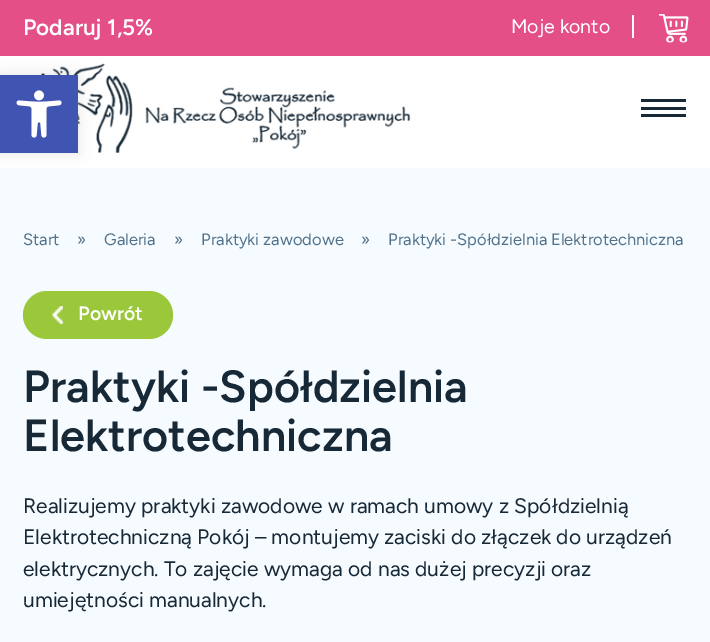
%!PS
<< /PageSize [710 642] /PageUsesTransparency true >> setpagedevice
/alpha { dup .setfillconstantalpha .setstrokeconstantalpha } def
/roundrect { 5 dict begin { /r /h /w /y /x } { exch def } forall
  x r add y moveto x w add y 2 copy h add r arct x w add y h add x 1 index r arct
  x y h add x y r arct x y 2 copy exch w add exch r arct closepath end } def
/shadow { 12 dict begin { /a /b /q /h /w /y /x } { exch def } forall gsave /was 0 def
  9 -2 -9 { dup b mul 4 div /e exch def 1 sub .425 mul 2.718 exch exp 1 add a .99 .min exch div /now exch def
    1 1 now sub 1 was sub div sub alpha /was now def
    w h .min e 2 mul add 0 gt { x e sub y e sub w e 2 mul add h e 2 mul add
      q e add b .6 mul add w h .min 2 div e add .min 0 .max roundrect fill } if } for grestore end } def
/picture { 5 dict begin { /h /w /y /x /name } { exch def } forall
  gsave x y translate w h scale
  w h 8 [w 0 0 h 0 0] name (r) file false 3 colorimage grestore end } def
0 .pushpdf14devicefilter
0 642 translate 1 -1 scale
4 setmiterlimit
1 setgray
0 0 710 642 rectfill
0.894 0.31 0.529 setrgbcolor
0 0 710 56 rectfill
/Figtree-SemiBold [22.5 0 0 -22.5 0 0] selectfont
1 setgray
23 35 moveto (Podaruj 1,5%) show
/Figtree-Regular [19.5 0 0 -19.5 0 0] selectfont
511 33 moveto (Moje konto) show
632 15 2 23 rectfill
(img1.rgb) 659 14 30 29 picture
(img2.rgb) 40 63 371 90 picture
0.09 0.161 0.216 setrgbcolor
641 99 45 3 rectfill
641 107 45 3 rectfill
641 114 45 3 rectfill
0.965 0.984 1 setrgbcolor
0 168 710 474 rectfill
0 setgray
0 75 78 78 0 7.5 0.1 shadow
0.251 0.329 0.698 setrgbcolor
0 75 78 78 rectfill
(img3.rgb) 16 90 46 48 picture
/Figtree-Regular [16.5 0 0 -16.5 0 0] selectfont
0.322 0.447 0.545 setrgbcolor
23 245 moveto (Start) show
77 245 moveto (») show
104 245 moveto (Galeria) show
174 245 moveto (») show
201 245 moveto (Praktyki zawodowe) show
361 245 moveto (») show
388 245 moveto (Praktyki -Spółdzielnia Elektrotechniczna) show
0.608 0.784 0.231 setrgbcolor
23 291 150 48 24 roundrect fill
(img4.rgb) 52 306 11 18 picture
/Figtree-SemiBold [19.5 0 0 -19.5 0 0] selectfont
1 setgray
78 320 moveto (Powrót) show
/Figtree-SemiBold [45 0 0 -45 0 0] selectfont
0.09 0.161 0.216 setrgbcolor
23 402 moveto (Praktyki -Spółdzielnia) show
23 451 moveto (Elektrotechniczna) show
/Figtree-Regular [21 0 0 -21 0 0] selectfont
23 513 moveto (Realizujemy praktyki zawodowe w ramach umowy z Spółdzielnią) show
23 544 moveto (Elektrotechniczną Pokój – montujemy zaciski do złączek do urządzeń) show
23 576 moveto (elektrycznych. To zajęcie wymaga od nas dużej precyzji oraz) show
23 607 moveto (umiejętności manualnych.) show
.poppdf14devicefilter showpage
